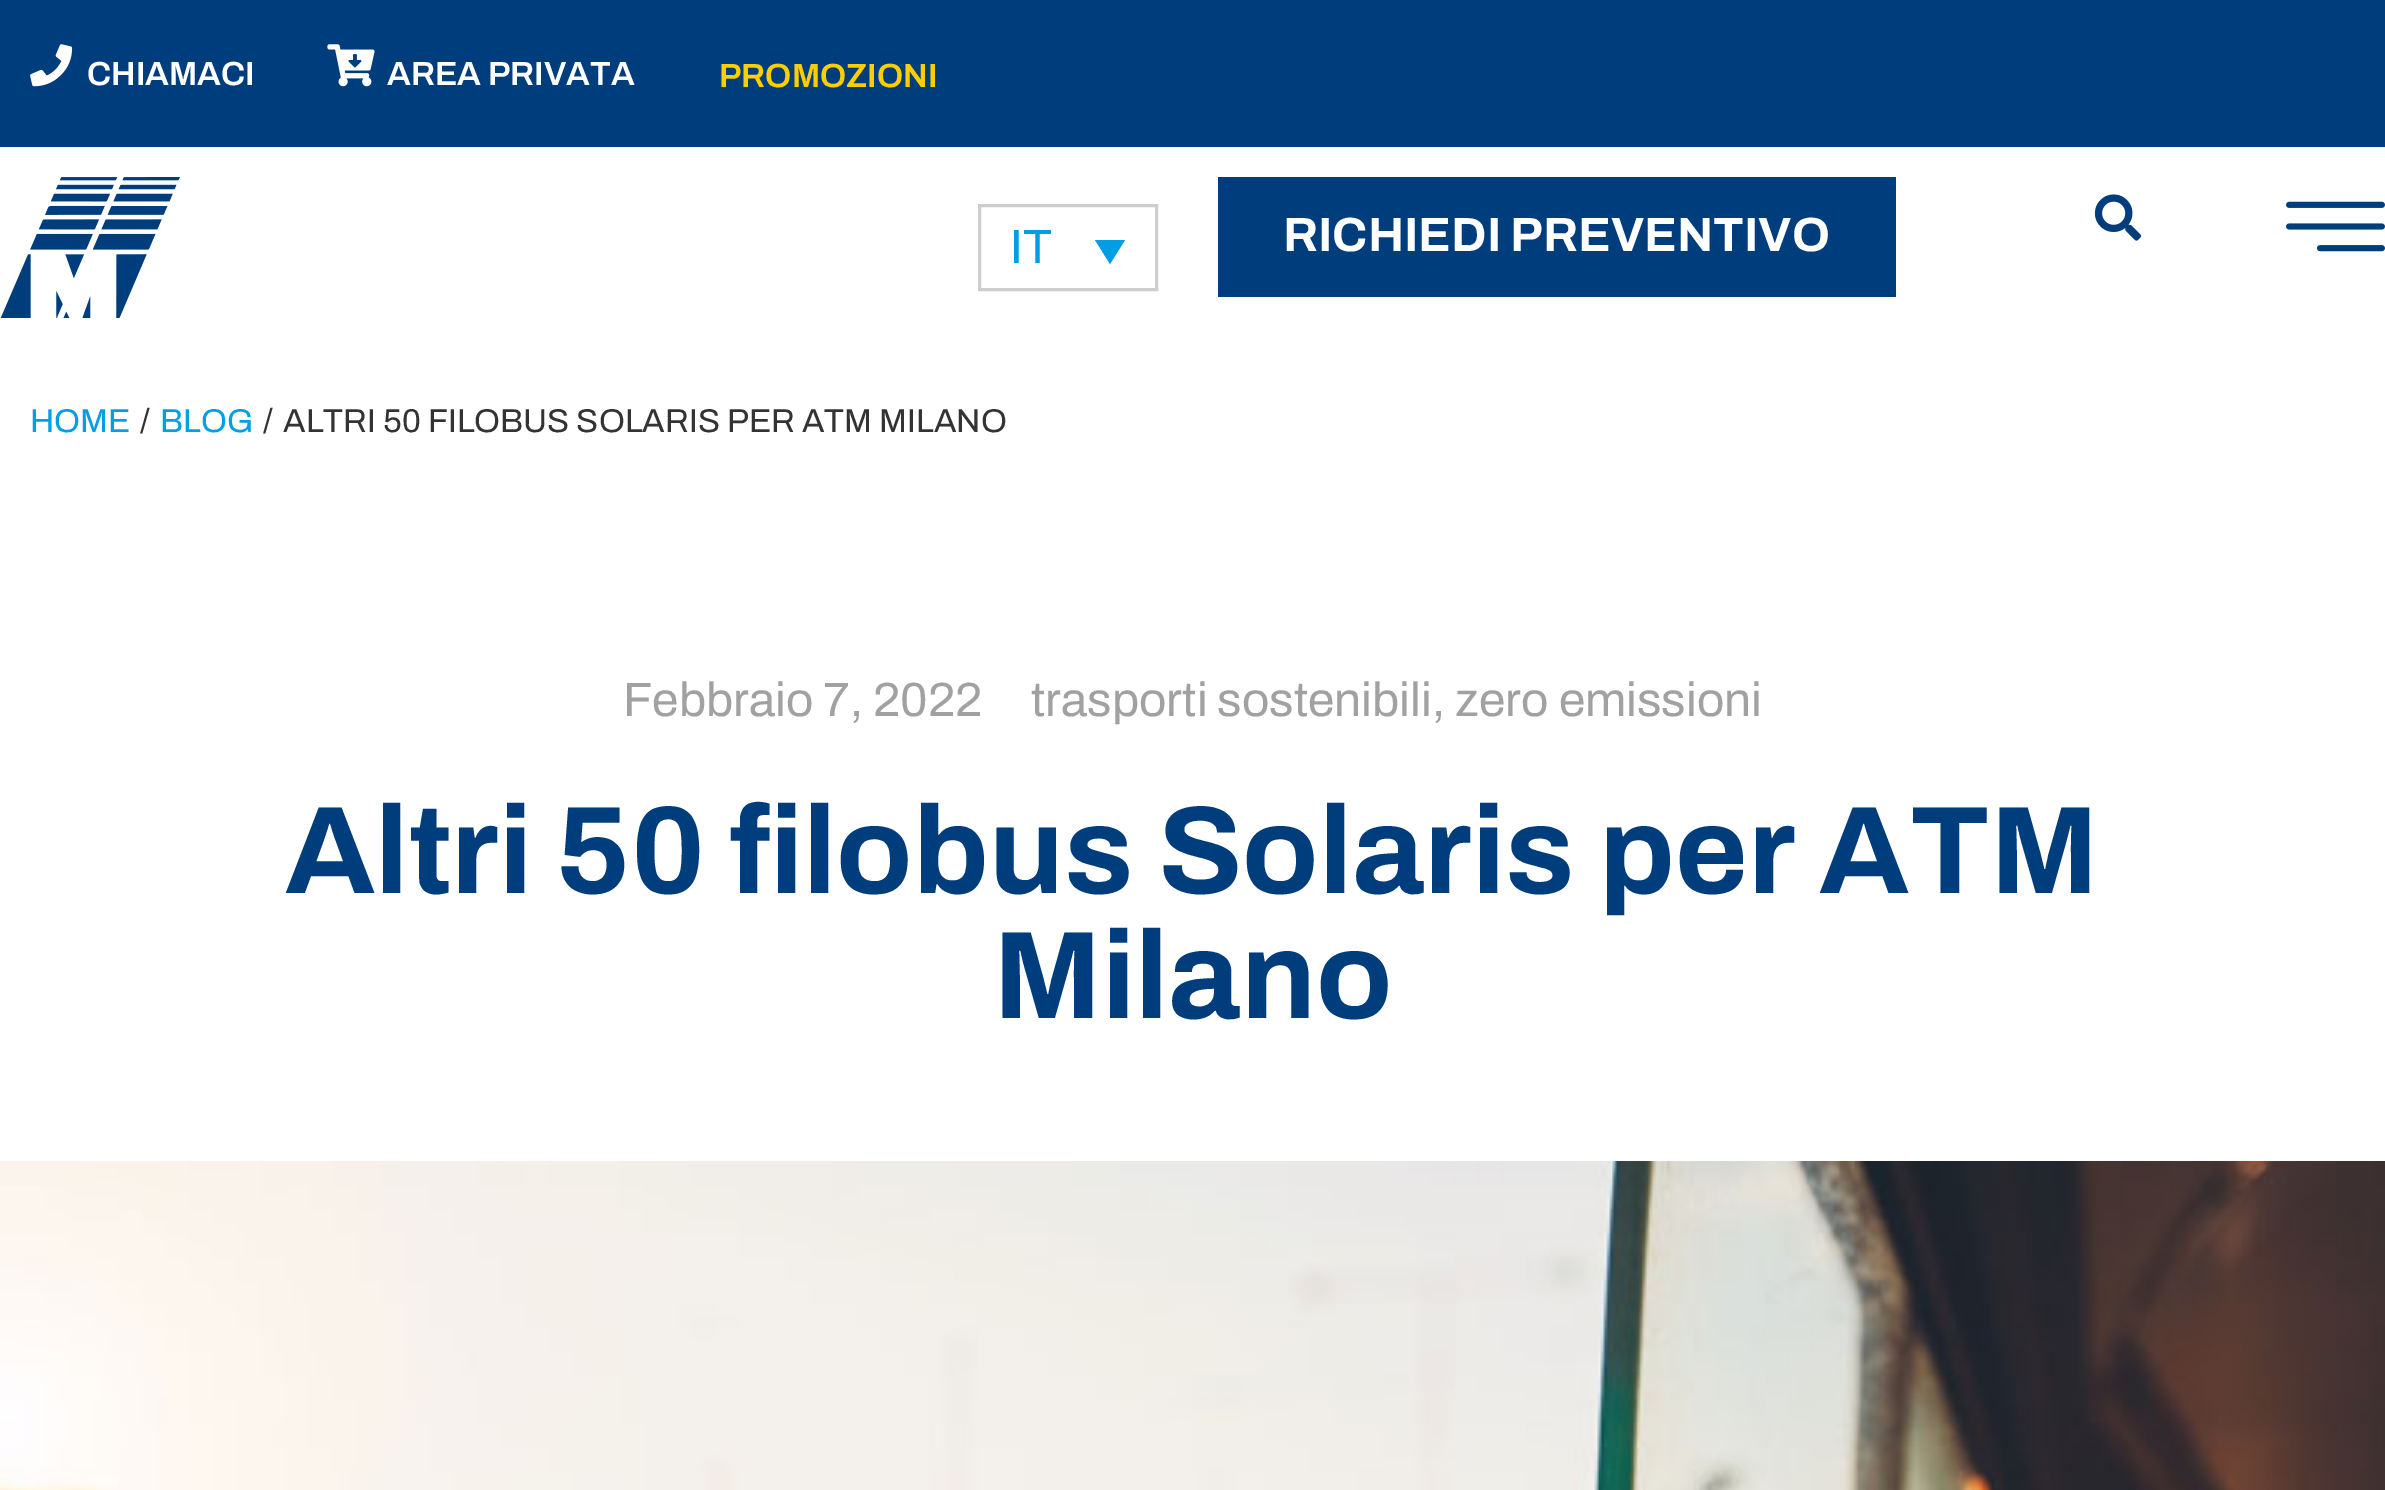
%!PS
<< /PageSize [2385 1490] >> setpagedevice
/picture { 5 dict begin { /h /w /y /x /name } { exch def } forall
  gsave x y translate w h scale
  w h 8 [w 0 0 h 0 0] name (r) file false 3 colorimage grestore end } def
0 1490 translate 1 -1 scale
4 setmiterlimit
1 setgray
0 0 2385 1490 rectfill
0 0.239 0.486 setrgbcolor
0 0 2385 147 rectfill
(img1.rgb) 30 44 43 43 picture
/Archivo-SemiBold [33.5 0 0 -33.5 0 0] selectfont
1 setgray
87 85 moveto (CHIAMACI) show
(img2.rgb) 327 44 48 43 picture
387 85 moveto (AREA PRIVATA) show
1 0.808 0 setrgbcolor
719 87 moveto (PROMOZIONI) show
(img3.rgb) 0 177 180 141 picture
0.804 setgray
3 setlinewidth
979.5 205.5 177 84 rectstroke
/Archivo-Regular [48 0 0 -48 0 0] selectfont
0 0.624 0.89 setrgbcolor
1010 263 moveto (IT) show
newpath 1095 240 moveto 1125 240 lineto 1110 264 lineto closepath fill
0 0.239 0.486 setrgbcolor
1218 177 678 120 rectfill
/Archivo-Bold [48 0 0 -48 0 0] selectfont
1 setgray
1283 251 moveto (RICHIEDI PREVENTIVO) show
(img4.rgb) 2094 194 48 47 picture
(img5.rgb) 2286 201 99 51 picture
/Archivo-Regular [33 0 0 -33 0 0] selectfont
0 0.624 0.89 setrgbcolor
30 432 moveto (HOME) show
0.2 setgray
140 432 moveto (/) show
0 0.624 0.89 setrgbcolor
160 432 moveto (BLOG) show
0.2 setgray
263 432 moveto (/) show
283 432 moveto (ALTRI 50 FILOBUS SOLARIS PER ATM MILANO) show
/Archivo-Regular [48 0 0 -48 0 0] selectfont
0.631 setgray
623 716 moveto (Febbraio 7, 2022) show
1031 716 moveto (trasporti sostenibili, zero emissioni) show
/Archivo-Bold [124.75 0 0 -124.75 0 0] selectfont
0 0.239 0.486 setrgbcolor
285 893 moveto (Altri 50 filobus Solaris per ATM) show
993 1018 moveto (Milano) show
(img6.rgb) 0 1161 2385 329 picture
showpage
